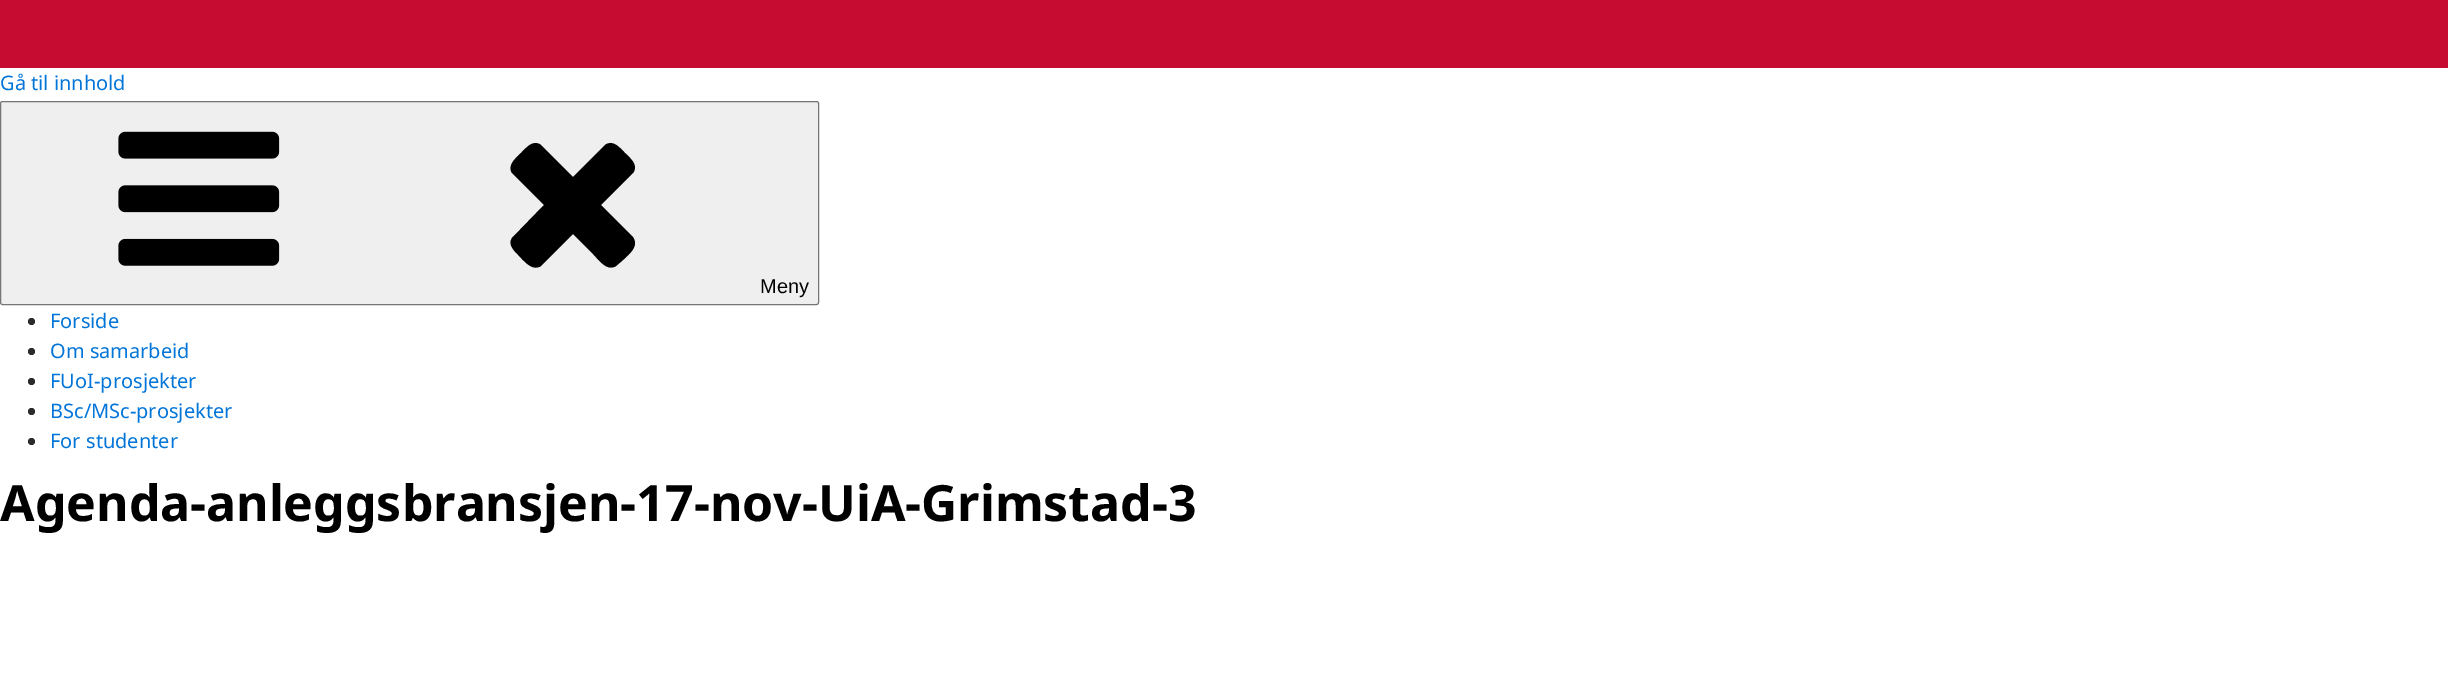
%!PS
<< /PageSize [2448 673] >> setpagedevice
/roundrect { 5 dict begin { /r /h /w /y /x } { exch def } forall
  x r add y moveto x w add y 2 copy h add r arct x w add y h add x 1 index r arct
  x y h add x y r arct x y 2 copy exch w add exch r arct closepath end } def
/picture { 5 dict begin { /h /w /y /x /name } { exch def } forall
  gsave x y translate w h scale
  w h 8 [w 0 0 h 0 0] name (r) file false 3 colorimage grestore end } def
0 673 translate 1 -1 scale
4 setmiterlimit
1 setgray
0 0 2448 673 rectfill
0.776 0.047 0.188 setrgbcolor
0 0 2448 68 rectfill
/NotoSans-Regular [20 0 0 -20 0 0] selectfont
0.008 0.459 0.847 setrgbcolor
0 90 moveto (Gå til innhold) show
0.937 setgray
0.5 101.5 818 203 2 roundrect gsave fill grestore
0.463 setgray
stroke
(img1.rgb) 118 131 162 135 picture
0 setgray
newpath 635 243 moveto 635 250 627 256 623 260 curveto 616 266 lineto 607 272 599 260 593 254 curveto 573 234 lineto 541 266 lineto 533 271 526 263 521 258 curveto 516 252 507 246 512 238 curveto 544 205 lineto 512 173 lineto 507 165 516 158 521 153 curveto 526 148 533 139 541 145 curveto 573 177 lineto 605 145 lineto 613 139 620 148 625 153 curveto 630 158 639 165 633 173 curveto 601 205 lineto 632 236 lineto 634 238 635 241 635 243 curveto closepath fill
/LiberationSans-Regular [20 0 0 -20 0 0] selectfont
760 293 moveto (Meny) show
0.161 0.169 0.173 setrgbcolor
newpath 31.5 321.5 3.5 0 360 arc closepath fill
/NotoSans-Regular [20 0 0 -20 0 0] selectfont
0.008 0.459 0.847 setrgbcolor
50 328 moveto (Forside) show
0.161 0.169 0.173 setrgbcolor
newpath 31.5 351.5 3.5 0 360 arc closepath fill
0.008 0.459 0.847 setrgbcolor
50 358 moveto (Om samarbeid) show
0.161 0.169 0.173 setrgbcolor
newpath 31.5 381.5 3.5 0 360 arc closepath fill
0.008 0.459 0.847 setrgbcolor
50 388 moveto (FUoI-prosjekter) show
0.161 0.169 0.173 setrgbcolor
newpath 31.5 411.5 3.5 0 360 arc closepath fill
0.008 0.459 0.847 setrgbcolor
50 418 moveto (BSc/MSc-prosjekter) show
0.161 0.169 0.173 setrgbcolor
newpath 31.5 441.5 3.5 0 360 arc closepath fill
0.008 0.459 0.847 setrgbcolor
50 448 moveto (For studenter) show
/NotoSans-Bold [50 0 0 -50 0 0] selectfont
0 setgray
0 521 moveto (Agenda-anleggsbransjen-17-nov-UiA-Grimstad-3) show
showpage
